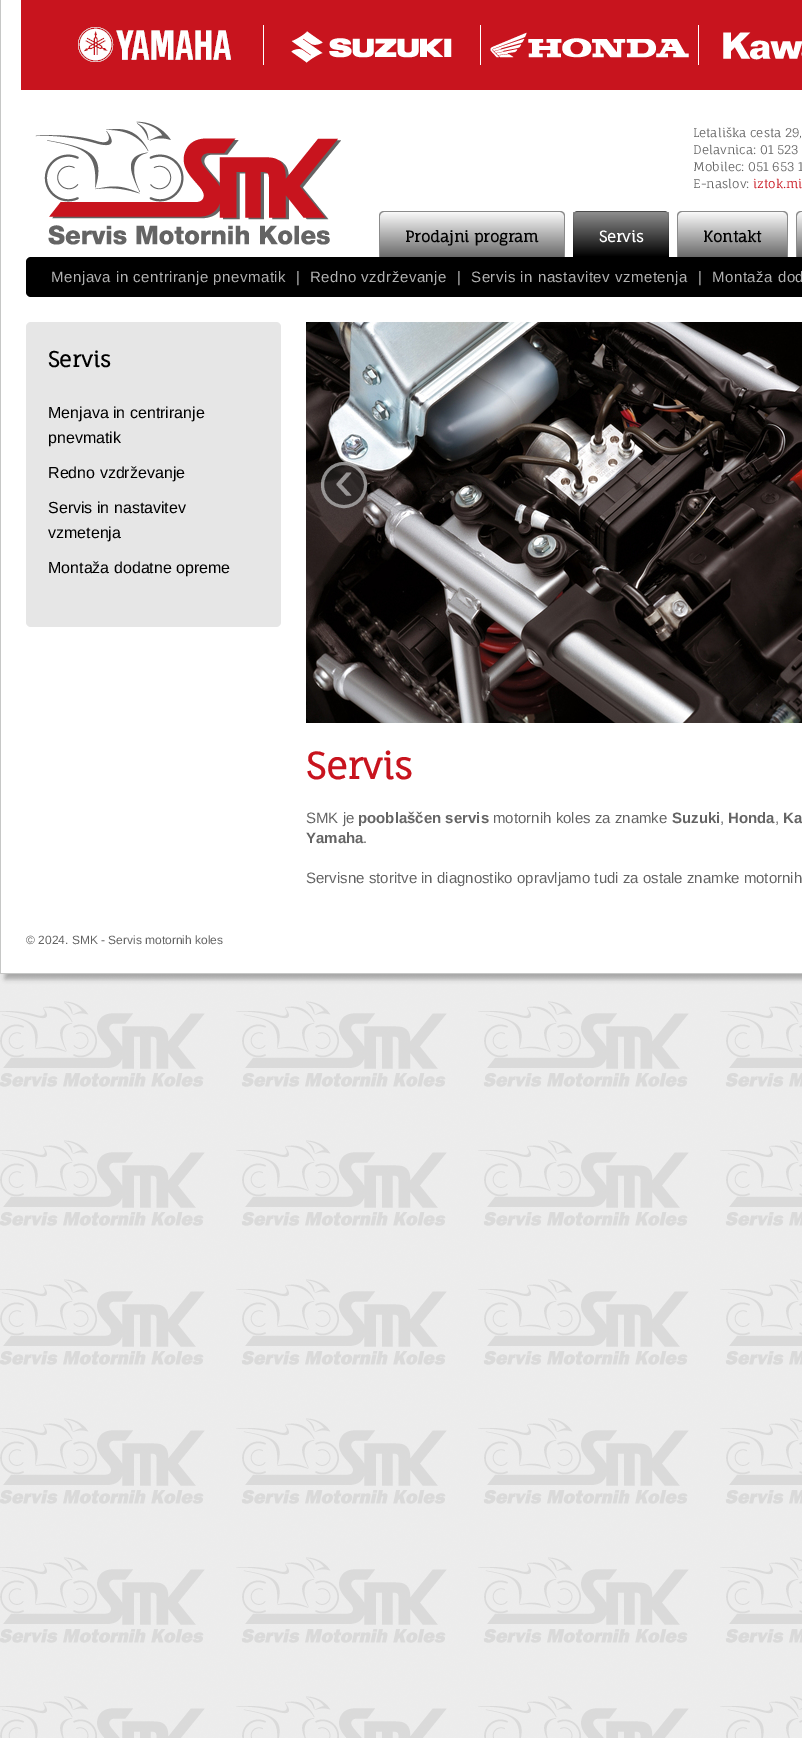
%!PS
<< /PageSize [802 1738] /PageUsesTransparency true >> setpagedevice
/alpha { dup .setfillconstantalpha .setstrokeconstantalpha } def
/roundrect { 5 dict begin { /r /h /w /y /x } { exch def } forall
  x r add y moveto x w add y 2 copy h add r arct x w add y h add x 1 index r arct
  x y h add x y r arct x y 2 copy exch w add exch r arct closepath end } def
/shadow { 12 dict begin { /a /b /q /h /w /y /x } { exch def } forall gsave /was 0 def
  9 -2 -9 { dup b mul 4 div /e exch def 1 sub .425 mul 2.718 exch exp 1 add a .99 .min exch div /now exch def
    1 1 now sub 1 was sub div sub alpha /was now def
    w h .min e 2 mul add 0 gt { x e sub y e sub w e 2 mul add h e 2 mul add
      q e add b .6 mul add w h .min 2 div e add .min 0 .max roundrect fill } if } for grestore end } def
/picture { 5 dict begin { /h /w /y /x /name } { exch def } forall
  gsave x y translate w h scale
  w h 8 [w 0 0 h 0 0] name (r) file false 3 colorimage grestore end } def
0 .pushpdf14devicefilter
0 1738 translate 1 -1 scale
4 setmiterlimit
1 setgray
0 0 802 1738 rectfill
(img1.rgb) 0 974 802 764 picture
0 setgray
5 5 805 974 0 2.5 0.3 shadow
1 setgray
1 0 801 973 rectfill
0.776 0.78 0.776 setrgbcolor
0 973 802 1 rectfill
0 0 1 974 rectfill
0.784 0.078 0.118 setrgbcolor
21 0 781 90 rectfill
1 setgray
263 25 1 40 rectfill
(img2.rgb) 78 27 153 35 picture
480 25 1 40 rectfill
(img3.rgb) 291 31 161 32 picture
698 25 1 40 rectfill
(img4.rgb) 490 32 199 26 picture
(img5.rgb) 723 32 79 28 picture
(img6.rgb) 35 121 306 124 picture
/FaunaOne-Regular [12 0 0 -12 0 0] selectfont
0.392 setgray
693 137 moveto (Letališka cesta 29,) show
693 154 moveto (Delavnica: 01 523) show
693 171 moveto (Mobilec: 051 653 1) show
693 188 moveto (E-naslov:) show
0.784 0.078 0.118 setrgbcolor
753 188 moveto (iztok.mi) show
gsave
newpath 384 211 moveto 560 211 lineto 563 211 565 213 565 216 curveto 565 257 lineto 379 257 lineto 379 216 lineto 379 213 381 211 384 211 curveto closepath clip newpath
gsave newpath 379 212 moveto 565 212 lineto 565 257 lineto 379 257 lineto closepath clip newpath
<< /ShadingType 2 /ColorSpace /DeviceRGB /Coords [472 212 472 257] /Extend [true true] /Function << /FunctionType 2 /Domain [0 1] /C0 [0.98 0.98 0.98] /C1 [0.412 0.412 0.412] /N 1 >> >> shfill grestore
grestore
0.545 setgray
newpath 384 211 moveto 560 211 lineto 563 211 565 213 565 216 curveto 565 257 lineto 379 257 lineto 379 216 lineto 379 213 381 211 384 211 curveto closepath 384 212 moveto 560 212 lineto 562 212 564 214 564 216 curveto 564 257 lineto 380 257 lineto 380 216 lineto 380 214 382 212 384 212 curveto closepath eofill
/FaunaOne-Bold [15 0 0 -15 0 0] selectfont
0 setgray
405 242 moveto (Prodajni program) show
0.333 setgray
newpath 578 211 moveto 664 211 lineto 667 211 669 213 669 216 curveto 669 257 lineto 573 257 lineto 573 216 lineto 573 213 575 211 578 211 curveto closepath fill
gsave
newpath 578 211 moveto 664 211 lineto 667 211 669 213 669 216 curveto 669 257 lineto 573 257 lineto 573 216 lineto 573 213 575 211 578 211 curveto closepath clip newpath
gsave newpath 573 212 moveto 669 212 lineto 669 257 lineto 573 257 lineto closepath clip newpath
<< /ShadingType 2 /ColorSpace /DeviceRGB /Coords [621 212 621 257] /Extend [true true] /Function << /FunctionType 2 /Domain [0 1] /C0 [0.557 0.557 0.557] /C1 [0 0 0] /N 1 >> >> shfill grestore
grestore
0.1 alpha
0 setgray
newpath 578 211 moveto 664 211 lineto 667 211 669 213 669 216 curveto 669 257 lineto 573 257 lineto 573 216 lineto 573 213 575 211 578 211 curveto closepath 578 212 moveto 664 212 lineto 666 212 668 214 668 216 curveto 668 257 lineto 574 257 lineto 574 216 lineto 574 214 576 212 578 212 curveto closepath eofill
1 alpha
1 setgray
599 242 moveto (Servis) show
gsave
newpath 682 211 moveto 783 211 lineto 786 211 788 213 788 216 curveto 788 257 lineto 677 257 lineto 677 216 lineto 677 213 679 211 682 211 curveto closepath clip newpath
gsave newpath 677 212 moveto 788 212 lineto 788 257 lineto 677 257 lineto closepath clip newpath
<< /ShadingType 2 /ColorSpace /DeviceRGB /Coords [733 212 733 257] /Extend [true true] /Function << /FunctionType 2 /Domain [0 1] /C0 [0.98 0.98 0.98] /C1 [0.412 0.412 0.412] /N 1 >> >> shfill grestore
grestore
0.545 setgray
newpath 682 211 moveto 783 211 lineto 786 211 788 213 788 216 curveto 788 257 lineto 677 257 lineto 677 216 lineto 677 213 679 211 682 211 curveto closepath 682 212 moveto 783 212 lineto 785 212 787 214 787 216 curveto 787 257 lineto 678 257 lineto 678 216 lineto 678 214 680 212 682 212 curveto closepath eofill
0 setgray
703 242 moveto (Kontakt) show
gsave
newpath 801 211 moveto 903 211 lineto 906 211 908 213 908 216 curveto 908 257 lineto 796 257 lineto 796 216 lineto 796 213 798 211 801 211 curveto closepath clip newpath
gsave newpath 796 212 moveto 802 212 lineto 802 257 lineto 796 257 lineto closepath clip newpath
<< /ShadingType 2 /ColorSpace /DeviceRGB /Coords [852 212 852 257] /Extend [true true] /Function << /FunctionType 2 /Domain [0 1] /C0 [0.98 0.98 0.98] /C1 [0.412 0.412 0.412] /N 1 >> >> shfill grestore
grestore
0.545 setgray
newpath 801 211 moveto 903 211 lineto 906 211 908 213 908 216 curveto 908 257 lineto 796 257 lineto 796 216 lineto 796 213 798 211 801 211 curveto closepath 801 212 moveto 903 212 lineto 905 212 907 214 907 216 curveto 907 257 lineto 797 257 lineto 797 216 lineto 797 214 799 212 801 212 curveto closepath eofill
0 setgray
26 257 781 40 5 roundrect fill
/LiberationSans-Regular [15 0 0 -15 0 0] selectfont
0.694 setgray
51 282 moveto 0.5 0 (Menjava in centriranje pnevmatik) ashow
296 282 moveto (|) show
310 282 moveto 0.5 0 (Redno vzdrževanje) ashow
457 282 moveto (|) show
471 282 moveto 0.5 0 (Servis in nastavitev vzmetenja) ashow
698 282 moveto (|) show
712 282 moveto 0.5 0 (Montaža dod) ashow
0.902 setgray
26 322 255 305 5 roundrect fill
/FaunaOne-Bold [21 0 0 -21 0 0] selectfont
0 setgray
48 367 moveto (Servis) show
/LiberationSans-Regular [16 0 0 -16 0 0] selectfont
48 418 moveto (Menjava in centriranje) show
48 443 moveto (pnevmatik) show
48 478 moveto (Redno vzdrževanje) show
48 513 moveto (Servis in nastavitev) show
48 538 moveto (vzmetenja) show
48 573 moveto (Montaža dodatne opreme) show
(img7.rgb) 306 322 496 401 picture
0.5 alpha
0.133 setgray
newpath 344 485 23 0 360 arc closepath fill
1 setgray
3 setlinewidth
newpath 344 485 21.5 0 360 arc closepath stroke
/LiberationSans-Regular [60 0 0 -60 0 0] selectfont
1 alpha
0.592 0.58 0.58 setrgbcolor
334 500 moveto (‹) show
/FaunaOne-Bold [36 0 0 -36 0 0] selectfont
0.784 0.078 0.118 setrgbcolor
306 779 moveto (Servis) show
/LiberationSans-Regular [15 0 0 -15 0 0] selectfont
0.392 setgray
306 823 moveto (SMK je) show
/LiberationSans-Bold [15 0 0 -15 0 0] selectfont
358 823 moveto (pooblaščen servis) show
/LiberationSans-Regular [15 0 0 -15 0 0] selectfont
493 823 moveto (motornih koles za znamke) show
/LiberationSans-Bold [15 0 0 -15 0 0] selectfont
672 823 moveto (Suzuki) show
/LiberationSans-Regular [15 0 0 -15 0 0] selectfont
720 823 moveto (,) show
/LiberationSans-Bold [15 0 0 -15 0 0] selectfont
728 823 moveto (Honda) show
/LiberationSans-Regular [15 0 0 -15 0 0] selectfont
775 823 moveto (,) show
/LiberationSans-Bold [15 0 0 -15 0 0] selectfont
783 823 moveto (Ka) show
306 843 moveto (Yamaha) show
/LiberationSans-Regular [15 0 0 -15 0 0] selectfont
363 843 moveto (.) show
306 883 moveto (Servisne storitve in diagnostiko opravljamo tudi za ostale znamke motornih) show
/LiberationSans-Regular [12 0 0 -12 0 0] selectfont
26 944 moveto (© 2024. SMK - Servis motornih koles) show
.poppdf14devicefilter showpage
